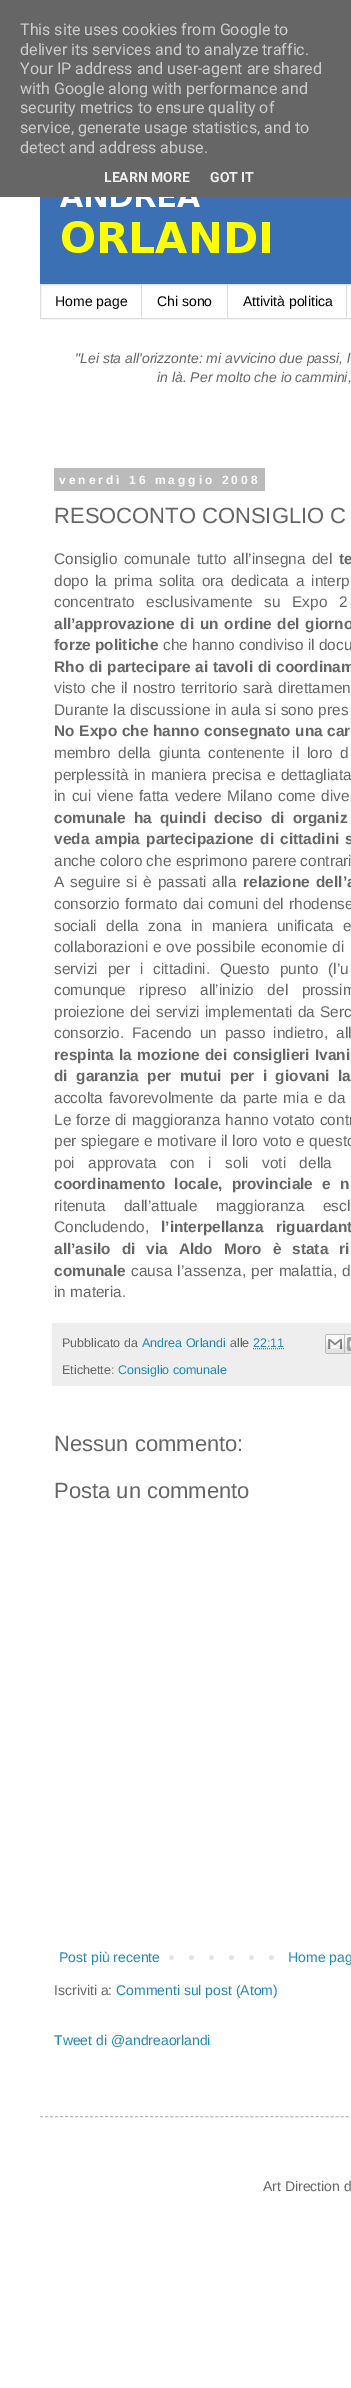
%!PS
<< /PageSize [351 2388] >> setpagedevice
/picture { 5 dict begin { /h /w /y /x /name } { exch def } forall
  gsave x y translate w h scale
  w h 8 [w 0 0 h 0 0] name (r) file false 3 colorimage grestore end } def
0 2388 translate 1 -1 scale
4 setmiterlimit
1 setgray
0 0 351 2388 rectfill
0.4 setgray
0 0 351 197 rectfill
/Roboto-Regular [16 0 0 -16 0 0] selectfont
0.8 setgray
20 35 moveto (This site uses cookies from Google to) show
20 55 moveto (deliver its services and to analyze traffic.) show
20 74 moveto (Your IP address and user-agent are shared) show
20 94 moveto (with Google along with performance and) show
20 113 moveto (security metrics to ensure quality of) show
20 133 moveto (service, generate usage statistics, and to) show
20 153 moveto (detect and address abuse.) show
/Roboto-Bold [14 0 0 -14 0 0] selectfont
0.933 setgray
104 182 moveto (LEARN MORE) show
210 182 moveto (GOT IT) show
(img1.rgb) 40 197 311 87 picture
0.867 setgray
40.5 284.5 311 34 rectstroke
141 285 1 33 rectfill
/LiberationSans-Regular [14 0 0 -14 0 0] selectfont
0 setgray
55 306 moveto (Home page) show
0.867 setgray
227 285 1 33 rectfill
0 setgray
157 306 moveto (Chi sono) show
0.867 setgray
346 285 1 33 rectfill
0 setgray
243 306 moveto (Attività politica) show
/LiberationSans-Italic [14 0 0 -14 0 0] selectfont
0.4 setgray
75 363 moveto ("Lei sta all'orizzonte: mi avvicino due passi, l) show
157 382 moveto (in là. Per molto che io cammini,) show
0.733 setgray
54 468 211 23 rectfill
/LiberationSans-Bold [12 0 0 -12 0 0] selectfont
1 setgray
59 484 moveto 3 0 (venerdì 16 maggio 2008) ashow
/LiberationSans-Regular [22 0 0 -22 0 0] selectfont
0.4 setgray
54 523 moveto (RESOCONTO CONSIGLIO C) show
/LiberationSans-Regular [15.4 0 0 -15.4 0 0] selectfont
54 564 moveto 2 0 32 (Consiglio comunale tutto all’insegna del) widthshow
/LiberationSans-Bold [15.4 0 0 -15.4 0 0] selectfont
339 564 moveto 2 0 32 (te) widthshow
/LiberationSans-Regular [15.4 0 0 -15.4 0 0] selectfont
54 586 moveto 2.5 0 32 (dopo la prima solita ora dedicata a interp) widthshow
54 607 moveto 7.5 0 32 (concentrato esclusivamente su Expo 2) widthshow
/LiberationSans-Bold [15.4 0 0 -15.4 0 0] selectfont
54 629 moveto 1.5 0 32 (all’approvazione di un ordine del giorno) widthshow
54 650 moveto (forze politiche) show
/LiberationSans-Regular [15.4 0 0 -15.4 0 0] selectfont
163 650 moveto (che hanno condiviso il docu) show
/LiberationSans-Bold [15.4 0 0 -15.4 0 0] selectfont
54 672 moveto 0.5 0 32 (Rho di partecipare ai tavoli di coordinam) widthshow
/LiberationSans-Regular [15.4 0 0 -15.4 0 0] selectfont
54 693 moveto 1 0 32 (visto che il nostro territorio sarà direttamen) widthshow
54 715 moveto 0.25 0 32 (Durante la discussione in aula si sono pres) widthshow
/LiberationSans-Bold [15.4 0 0 -15.4 0 0] selectfont
54 736 moveto 0.5 0 32 (No Expo che hanno consegnato una car) widthshow
/LiberationSans-Regular [15.4 0 0 -15.4 0 0] selectfont
54 758 moveto 3.5 0 32 (membro della giunta contenente il loro d) widthshow
54 780 moveto 1 0 32 (perplessità in maniera precisa e dettagliata) widthshow
54 801 moveto 1.25 0 32 (in cui viene fatta vedere Milano come dive) widthshow
/LiberationSans-Bold [15.4 0 0 -15.4 0 0] selectfont
54 823 moveto 3.75 0 32 (comunale ha quindi deciso di organiz) widthshow
54 844 moveto 2 0 32 (veda ampia partecipazione di cittadini s) widthshow
/LiberationSans-Regular [15.4 0 0 -15.4 0 0] selectfont
54 866 moveto (anche coloro che esprimono parere contrari) show
54 887 moveto 1.5 0 32 (A seguire si è passati alla) widthshow
/LiberationSans-Bold [15.4 0 0 -15.4 0 0] selectfont
243 887 moveto 2 0 32 (relazione dell’a) widthshow
/LiberationSans-Regular [15.4 0 0 -15.4 0 0] selectfont
54 909 moveto 1 0 32 (consorzio formato dai comuni del rhodense) widthshow
54 931 moveto 5 0 32 (sociali della zona in maniera unificata e) widthshow
54 952 moveto 0.5 0 32 (collaborazioni e ove possibile economie di) widthshow
54 974 moveto 5.75 0 32 (servizi per i cittadini. Questo punto \(l’u) widthshow
54 995 moveto 9.25 0 32 (comunque ripreso all’inizio del prossim) widthshow
54 1017 moveto 1 0 32 (proiezione dei servizi implementati da Serc) widthshow
54 1038 moveto 3.5 0 32 (consorzio. Facendo un passo indietro, all) widthshow
/LiberationSans-Bold [15.4 0 0 -15.4 0 0] selectfont
54 1060 moveto 1 0 32 (respinta la mozione dei consiglieri Ivani) widthshow
54 1081 moveto 4.25 0 32 (di garanzia per mutui per i giovani la) widthshow
/LiberationSans-Regular [15.4 0 0 -15.4 0 0] selectfont
54 1103 moveto 1.5 0 32 (accolta favorevolmente da parte mia e da) widthshow
54 1125 moveto 0.5 0 32 (Le forze di maggioranza hanno votato contr) widthshow
54 1146 moveto 0.25 0 32 (per spiegare e motivare il loro voto e questo) widthshow
54 1168 moveto 9.25 0 32 (poi approvata con i soli voti della) widthshow
/LiberationSans-Bold [15.4 0 0 -15.4 0 0] selectfont
54 1189 moveto 5 0 32 (coordinamento locale, provinciale e n) widthshow
/LiberationSans-Regular [15.4 0 0 -15.4 0 0] selectfont
54 1211 moveto 14 0 32 (ritenuta dall’attuale maggioranza escl) widthshow
54 1232 moveto (Concludendo,) show
/LiberationSans-Bold [15.4 0 0 -15.4 0 0] selectfont
161 1232 moveto 8 0 32 (l’interpellanza riguardant) widthshow
54 1254 moveto 6.75 0 32 (all’asilo di via Aldo Moro è stata ri) widthshow
54 1276 moveto (comunale) show
/LiberationSans-Regular [15.4 0 0 -15.4 0 0] selectfont
131 1276 moveto 1 0 32 (causa l’assenza, per malattia, d) widthshow
54 1297 moveto (in materia.) show
0.933 setgray
52 1323 299 63 rectfill
/LiberationSans-Regular [12.5 0 0 -12.5 0 0] selectfont
0.4 setgray
62 1347 moveto (Pubblicato da) show
0.133 0.533 0.733 setrgbcolor
142 1347 moveto (Andrea Orlandi) show
0.4 setgray
230 1347 moveto (alle) show
0.133 0.533 0.733 setrgbcolor
253 1347 moveto (22:11) show
[1 1] 0 setdash
newpath 253 1348.5 moveto 284.5 1348.5 lineto stroke
(img2.rgb) 325 1334 20 20 picture
(img3.rgb) 345 1334 6 20 picture
0.4 setgray
62 1374 moveto (Etichette:) show
0.133 0.533 0.733 setrgbcolor
118 1374 moveto (Consiglio comunale) show
/LiberationSans-Regular [22 0 0 -22 0 0] selectfont
0.4 setgray
54 1451 moveto (Nessun commento:) show
54 1498 moveto (Posta un commento) show
(img4.rgb) 169 1955 105 5 picture
/LiberationSans-Regular [14 0 0 -14 0 0] selectfont
0.133 0.533 0.733 setrgbcolor
59 1962 moveto (Post più recente) show
288 1962 moveto (Home pag) show
0.4 setgray
54 1995 moveto (Iscriviti a:) show
0.133 0.533 0.733 setrgbcolor
116 1995 moveto (Commenti sul post \(Atom\)) show
54 2045 moveto (Tweet di @andreaorlandi) show
0.733 setgray
[3 2.01] 0 setdash
newpath 40 2116.5 moveto 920 2116.5 lineto stroke
0.4 setgray
263 2191 moveto (Art Direction d) show
showpage
